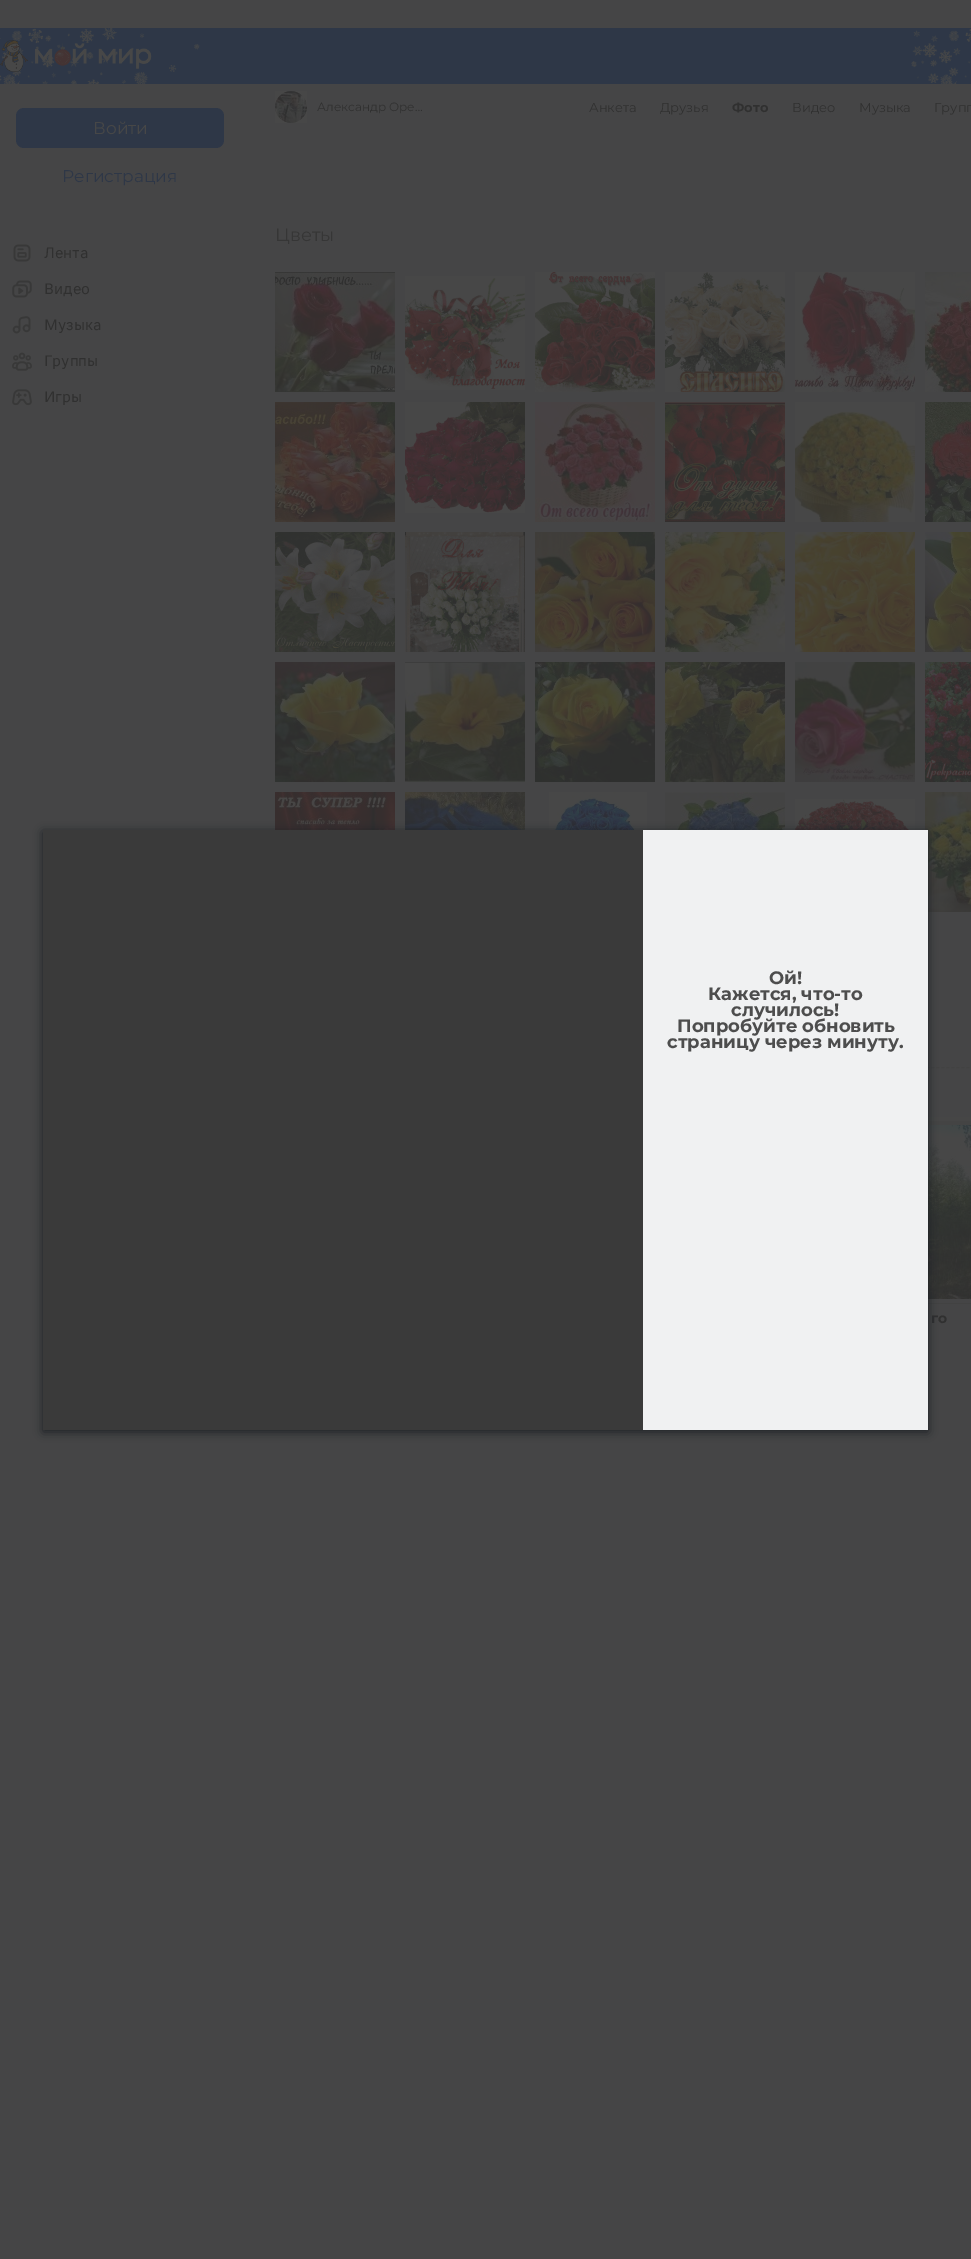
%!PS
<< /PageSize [971 2259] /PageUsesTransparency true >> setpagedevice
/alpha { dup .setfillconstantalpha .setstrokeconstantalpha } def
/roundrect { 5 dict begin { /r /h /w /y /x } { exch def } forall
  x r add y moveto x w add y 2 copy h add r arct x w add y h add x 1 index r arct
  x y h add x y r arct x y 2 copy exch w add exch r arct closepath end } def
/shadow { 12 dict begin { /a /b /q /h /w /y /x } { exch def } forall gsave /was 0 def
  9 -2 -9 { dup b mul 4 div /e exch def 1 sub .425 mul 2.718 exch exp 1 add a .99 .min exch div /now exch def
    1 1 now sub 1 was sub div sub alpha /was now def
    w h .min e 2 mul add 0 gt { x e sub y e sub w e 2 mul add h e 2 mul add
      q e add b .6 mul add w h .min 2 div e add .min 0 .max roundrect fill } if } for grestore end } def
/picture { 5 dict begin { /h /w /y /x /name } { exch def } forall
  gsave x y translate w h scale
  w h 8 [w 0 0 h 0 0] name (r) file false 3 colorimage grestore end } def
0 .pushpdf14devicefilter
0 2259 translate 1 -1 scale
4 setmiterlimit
0.271 0.271 0.275 setrgbcolor
0 0 971 2259 rectfill
0.18 0.216 0.278 setrgbcolor
0 28 971 56 rectfill
(img1.rgb) 0 28 200 56 picture
(img2.rgb) 911 29 60 55 picture
(img3.rgb) 0 40 152 32 picture
16 108 208 40 8 roundrect fill
/Montserrat-Regular [17 0 0 -17 0 0] selectfont
0.278 setgray
93 134 moveto (Войти) show
0.18 0.216 0.278 setrgbcolor
62 182 moveto (Регистрация) show
(img4.rgb) 13 244 18 18 picture
/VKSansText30-Regular [15 0 0 -15 0 0] selectfont
0.188 setgray
44 258 moveto (Лента) show
(img5.rgb) 12 280 20 18 picture
44 294 moveto (Видео) show
(img6.rgb) 12 316 19 18 picture
44 330 moveto (Музыка) show
(img7.rgb) 12 352 20 19 picture
44 366 moveto (Группы) show
(img8.rgb) 12 389 20 17 picture
44 402 moveto (Игры) show
(img9.rgb) 275 91 32 32 picture
/Montserrat-Regular [12 0 0 -12 0 0] selectfont
317 111 moveto (Александр Оре…) show
/Montserrat-Regular [13 0 0 -13 0 0] selectfont
589 112 moveto (Анкета) show
660 112 moveto (Друзья) show
/Montserrat-Bold [13 0 0 -13 0 0] selectfont
732 112 moveto (Фото) show
/Montserrat-Regular [13 0 0 -13 0 0] selectfont
792 112 moveto (Видео) show
859 112 moveto (Музыка) show
934 112 moveto (Групп) show
/Montserrat-Regular [18 0 0 -18 0 0] selectfont
0.212 setgray
275 241 moveto (Цветы) show
(img10.rgb) 275 272 120 120 picture
(img11.rgb) 405 276 120 114 picture
(img12.rgb) 535 272 120 120 picture
(img13.rgb) 665 272 120 120 picture
(img14.rgb) 795 272 120 120 picture
(img15.rgb) 925 272 46 120 picture
(img16.rgb) 275 402 120 120 picture
(img17.rgb) 405 402 120 111 picture
(img18.rgb) 535 402 120 120 picture
(img19.rgb) 665 402 120 120 picture
(img20.rgb) 795 402 120 120 picture
(img21.rgb) 925 402 46 120 picture
(img22.rgb) 275 532 120 120 picture
(img23.rgb) 405 532 120 120 picture
(img24.rgb) 535 532 120 120 picture
(img25.rgb) 665 532 120 120 picture
(img26.rgb) 795 532 120 120 picture
(img27.rgb) 925 532 46 120 picture
(img28.rgb) 275 662 120 120 picture
(img29.rgb) 405 662 120 120 picture
(img30.rgb) 535 662 120 120 picture
(img31.rgb) 665 662 120 120 picture
(img32.rgb) 795 662 120 120 picture
(img33.rgb) 925 662 46 120 picture
(img34.rgb) 275 792 120 38 picture
(img35.rgb) 405 792 120 38 picture
(img36.rgb) 549 792 98 38 picture
(img37.rgb) 665 792 120 38 picture
(img38.rgb) 795 799 120 31 picture
(img39.rgb) 925 792 46 120 picture
0.259 setgray
[3 2.01] 0 setdash
newpath 275 1067.5 moveto 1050 1067.5 lineto stroke
(img40.rgb) 928 1125 43 174 picture
(img41.rgb) 928 1117 43 8 picture
928 1303 43 1 rectfill
/Montserrat-Bold [14 0 0 -14 0 0] selectfont
0.188 setgray
931 1323 moveto (го) show
0.102 0.122 0.141 setrgbcolor
43 832 885 600 0 5 1 shadow
0.941 0.945 0.949 setrgbcolor
643 830 285 600 rectfill
0.227 setgray
43 830 600 600 rectfill
/Montserrat-Bold [18 0 0 -18 0 0] selectfont
0.302 setgray
769 984 moveto (Ой!) show
708 1000 moveto (Кажется, что-то) show
731 1016 moveto (случилось!) show
677 1032 moveto (Попробуйте обновить) show
667 1048 moveto (страницу через минуту.) show
.poppdf14devicefilter showpage
